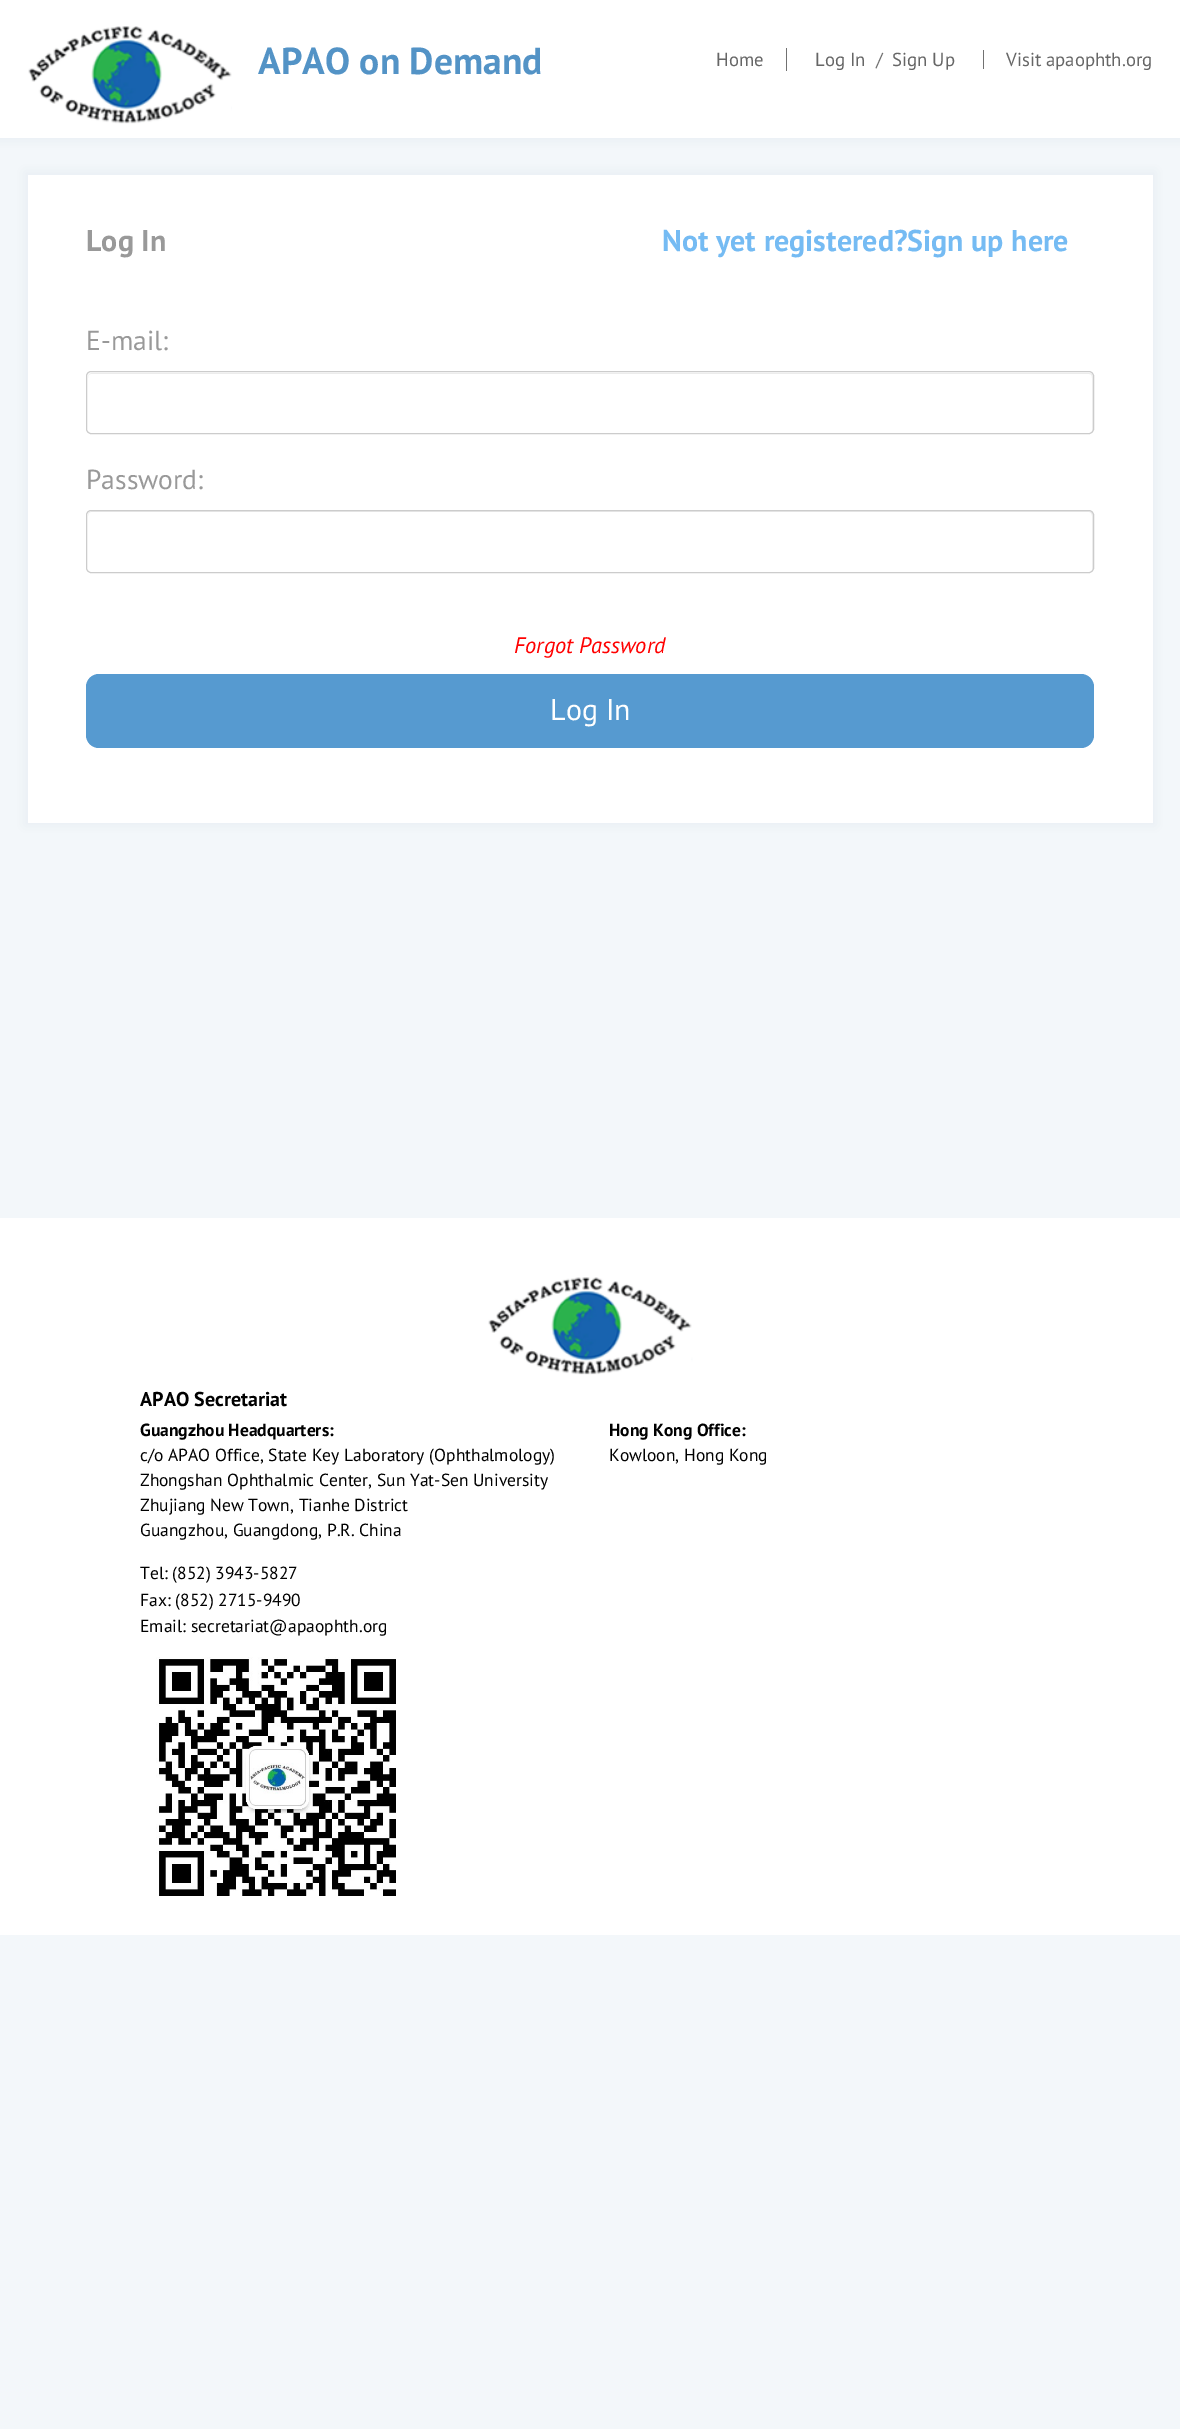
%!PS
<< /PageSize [1180 2429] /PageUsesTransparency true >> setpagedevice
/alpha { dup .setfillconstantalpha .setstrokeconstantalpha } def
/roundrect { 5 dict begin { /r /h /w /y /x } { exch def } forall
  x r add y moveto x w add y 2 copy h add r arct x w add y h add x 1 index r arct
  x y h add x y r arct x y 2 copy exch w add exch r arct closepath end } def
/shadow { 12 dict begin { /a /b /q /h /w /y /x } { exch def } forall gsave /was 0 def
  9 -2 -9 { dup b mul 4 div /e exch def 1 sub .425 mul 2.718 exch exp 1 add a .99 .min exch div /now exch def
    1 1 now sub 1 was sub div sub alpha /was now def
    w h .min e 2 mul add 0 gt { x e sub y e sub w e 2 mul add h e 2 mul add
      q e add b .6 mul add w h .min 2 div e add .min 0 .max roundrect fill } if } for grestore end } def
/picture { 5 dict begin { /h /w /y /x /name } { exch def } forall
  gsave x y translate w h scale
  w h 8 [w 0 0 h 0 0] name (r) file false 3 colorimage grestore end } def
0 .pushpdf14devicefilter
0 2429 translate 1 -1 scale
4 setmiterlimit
0.953 0.969 0.98 setrgbcolor
0 0 1180 2429 rectfill
0.494 0.608 0.69 setrgbcolor
-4 -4 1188 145 0 6 0.1 shadow
1 setgray
0 0 1180 138 rectfill
(img1.rgb) 28 26 204 98 picture
/PTSans-Bold [37.5 0 0 -37.5 0 0] selectfont
0.325 0.576 0.776 setrgbcolor
258 74 moveto (APAO on Demand) show
/PTSans-Regular [18.75 0 0 -18.75 0 0] selectfont
0.4 setgray
716 66 moveto (Home) show
0.443 setgray
786 48 1 23 rectfill
0.4 setgray
815 66 moveto (Log In) show
0.443 setgray
876 66 moveto (/) show
0.4 setgray
892 66 moveto (Sign Up) show
0.443 setgray
983 50 1 19 rectfill
0.4 setgray
1006 66 moveto (Visit apaophth.org) show
0.494 0.608 0.69 setrgbcolor
24 171 1132 655 0 6 0.1 shadow
1 setgray
28 175 1125 648 rectfill
/PTSans-Bold [30 0 0 -30 0 0] selectfont
0.6 setgray
86 251 moveto (Log In) show
0.459 0.733 0.953 setrgbcolor
662 251 moveto (Not yet registered?Sign up here) show
/PTSans-Regular [27.5 0 0 -27.5 0 0] selectfont
0.6 setgray
86 350 moveto (E-mail:) show
0.925 setgray
newpath 91 374 moveto 1089 374 lineto 1091 374 1092 375 1092 378 curveto 1092 430 lineto 1092 432 lineto 1092 431 1093 430 1093 429 curveto 1093 377 lineto 1093 375 1091 373 1089 373 curveto 92 373 lineto 90 373 88 375 88 377 curveto 88 378 lineto 88 375 89 374 91 374 curveto closepath fill
0.8 setgray
86.5 371.5 1007 62 4.5 roundrect stroke
0.6 setgray
86 489 moveto (Password:) show
0.925 setgray
newpath 91 512 moveto 1089 512 lineto 1091 512 1092 514 1092 516 curveto 1092 570 lineto 1093 569 1093 568 1093 567 curveto 1093 515 lineto 1093 513 1091 511 1089 511 curveto 92 511 lineto 90 511 88 513 88 515 curveto 88 516 lineto 88 514 89 512 91 512 curveto closepath fill
0.8 setgray
86.5 510.5 1007 62 4.5 roundrect stroke
/PTSans-Italic [22.5 0 0 -22.5 0 0] selectfont
1 0 0 setrgbcolor
514 653 moveto (Forgot Password) show
0.337 0.604 0.816 setrgbcolor
86 674 1008 74 13 roundrect fill
/PTSans-Regular [30 0 0 -30 0 0] selectfont
1 setgray
550 720 moveto (Log In) show
0 1218 1180 717 rectfill
(img2.rgb) 488 1277 205 98 picture
/PTSans-Bold [20 0 0 -20 0 0] selectfont
0 setgray
140 1406 moveto (APAO Secretariat) show
/PTSans-Bold [17.5 0 0 -17.5 0 0] selectfont
140 1436 moveto (Guangzhou Headquarters:) show
/PTSans-Regular [17.5 0 0 -17.5 0 0] selectfont
140 1461 moveto (c/o APAO Office, State Key Laboratory \(Ophthalmology\)) show
140 1486 moveto (Zhongshan Ophthalmic Center, Sun Yat-Sen University) show
140 1511 moveto (Zhujiang New Town, Tianhe District) show
140 1536 moveto (Guangzhou, Guangdong, P.R. China) show
140 1579 moveto (Tel: \(852\) 3943-5827) show
140 1606 moveto (Fax: \(852\) 2715-9490) show
140 1632 moveto (Email: secretariat@apaophth.org) show
/PTSans-Bold [17.5 0 0 -17.5 0 0] selectfont
609 1436 moveto (Hong Kong Office:) show
/PTSans-Regular [17.5 0 0 -17.5 0 0] selectfont
609 1461 moveto (Kowloon, Hong Kong) show
(img3.rgb) 156 1657 240 239 picture
.poppdf14devicefilter showpage
